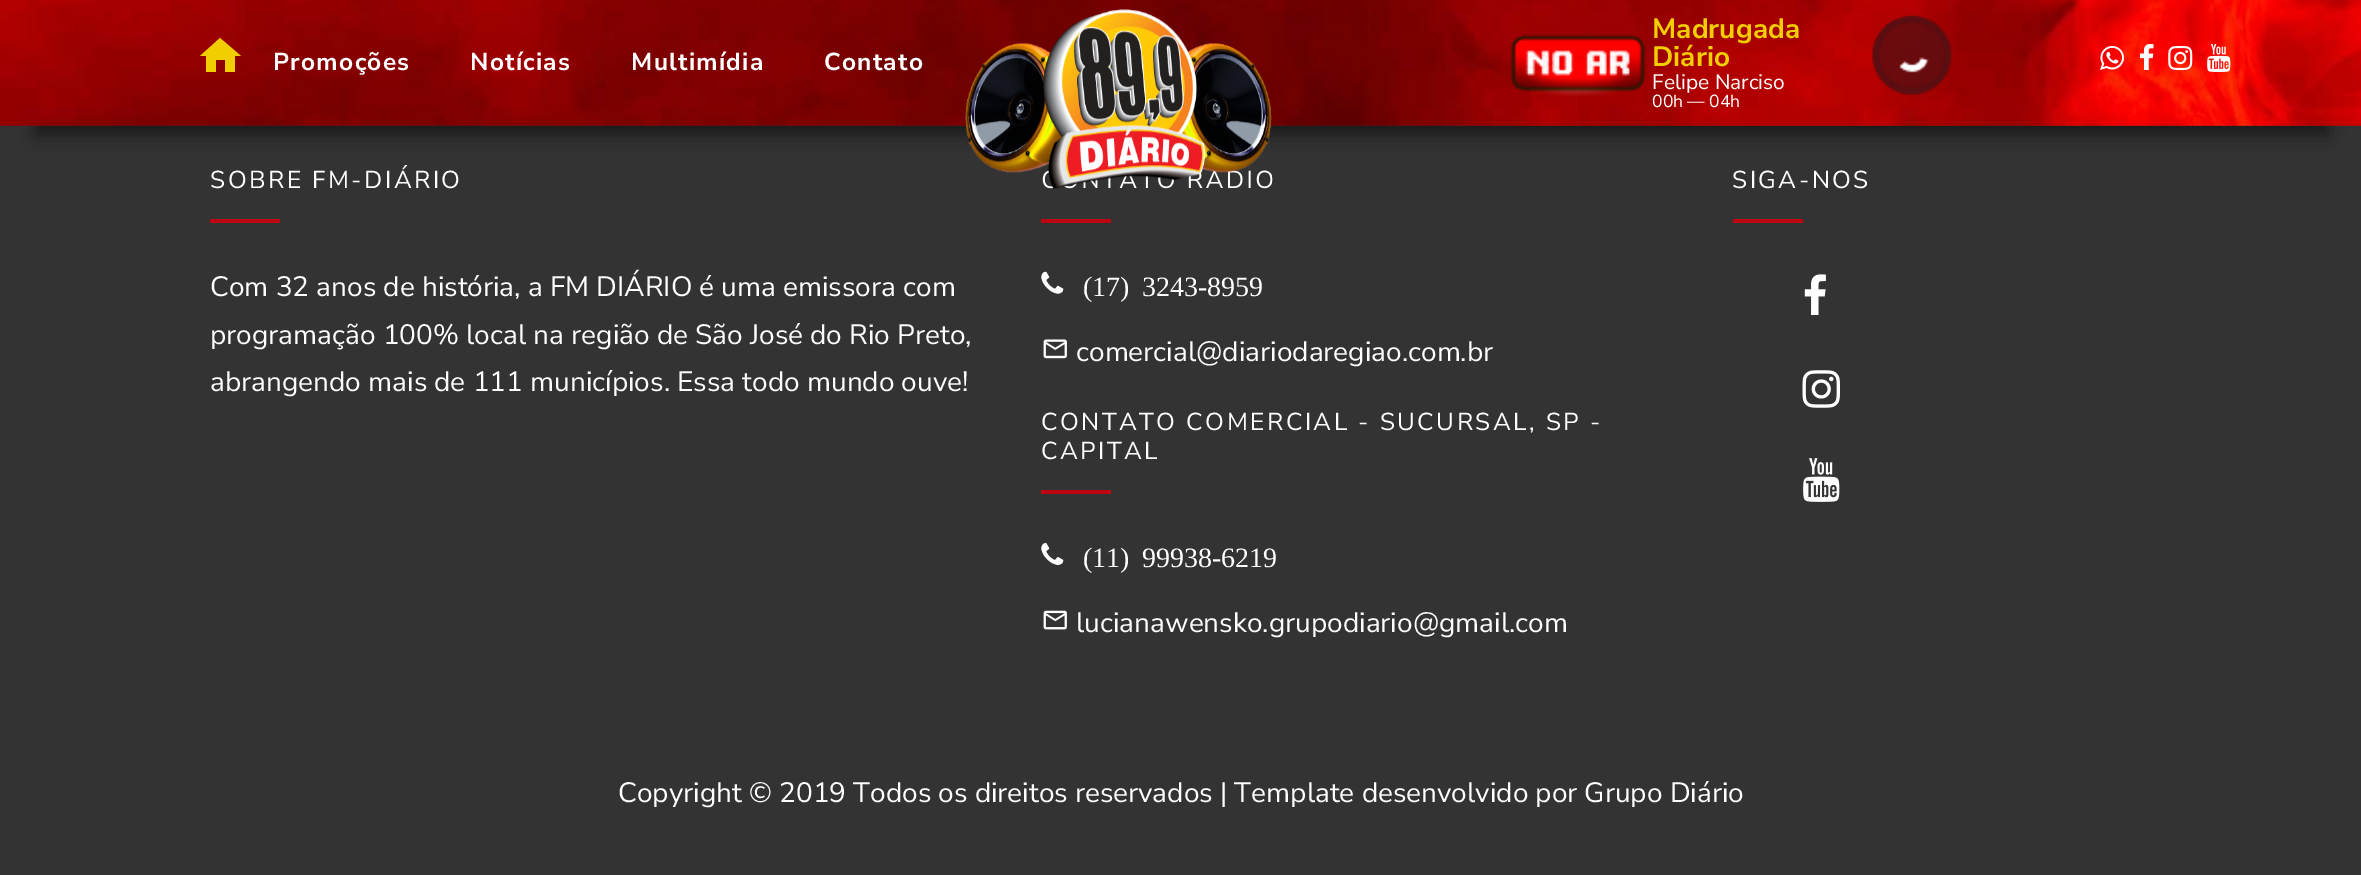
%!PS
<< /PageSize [2361 875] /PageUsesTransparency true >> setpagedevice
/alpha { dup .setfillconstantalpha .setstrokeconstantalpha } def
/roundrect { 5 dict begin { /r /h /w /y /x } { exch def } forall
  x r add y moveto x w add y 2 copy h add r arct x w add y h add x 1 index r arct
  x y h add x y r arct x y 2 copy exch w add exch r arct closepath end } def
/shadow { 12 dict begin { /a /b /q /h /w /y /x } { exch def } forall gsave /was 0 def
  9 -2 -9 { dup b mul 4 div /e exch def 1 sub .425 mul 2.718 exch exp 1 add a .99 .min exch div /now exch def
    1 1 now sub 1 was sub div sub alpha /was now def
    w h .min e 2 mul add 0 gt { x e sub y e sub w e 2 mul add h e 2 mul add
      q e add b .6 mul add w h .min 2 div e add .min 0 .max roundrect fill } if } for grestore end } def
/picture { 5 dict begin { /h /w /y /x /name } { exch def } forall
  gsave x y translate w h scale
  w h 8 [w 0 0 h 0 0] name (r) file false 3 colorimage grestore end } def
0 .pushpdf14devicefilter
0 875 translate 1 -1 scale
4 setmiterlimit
0.2 setgray
0 0 2361 875 rectfill
0 setgray
35 79 2293 56 0 9 0.5 shadow
(img1.rgb) 0 0 2361 126 picture
0.945 0.808 0 setrgbcolor
newpath 216 72 moveto 206 72 lineto 206 56 lineto 200 56 lineto 220 38 lineto 241 56 lineto 235 56 lineto 235 72 lineto 225 72 lineto 225 60 lineto 216 60 lineto closepath fill
/NunitoSans-Bold [24.5 0 0 -24.5 0 0] selectfont
1 setgray
273 70 moveto 1.25 0 (Promoções) ashow
470 70 moveto 1.25 0 (Notícias) ashow
631 70 moveto 1.25 0 (Multimídia) ashow
824 70 moveto 1.25 0 (Contato) ashow
/NunitoSans-Regular [24.5 0 0 -24.5 0 0] selectfont
1226 188 moveto 2.45 0 (DIO) ashow
(img2.rgb) 965 9 307 180 picture
(img3.rgb) 1510 34 136 62 picture
/NunitoSans-Bold [28 0 0 -28 0 0] selectfont
0.945 0.808 0 setrgbcolor
1652 38 moveto (Madrugada) show
1652 66 moveto (Diário) show
/NunitoSans-Regular [21 0 0 -21 0 0] selectfont
1 setgray
1652 89 moveto (Felipe Narciso) show
/NunitoSans-Regular [17.5 0 0 -17.5 0 0] selectfont
1652 107 moveto (00h — 04h) show
(img4.rgb) 1872 15 80 80 picture
(img5.rgb) 2100 45 24 25 picture
(img6.rgb) 2139 44 15 26 picture
(img7.rgb) 2168 46 25 24 picture
(img8.rgb) 2207 44 24 28 picture
/NunitoSans-Regular [24.5 0 0 -24.5 0 0] selectfont
210 188 moveto 2.45 0 (SOBRE FM-DIÁRIO) ashow
0.749 0.016 0.067 setrgbcolor
210 219 70 4 rectfill
/NunitoSans-Regular [28 0 0 -28 0 0] selectfont
1 setgray
210 296 moveto (Com 32 anos de história, a FM DIÁRIO é uma emissora com) show
210 344 moveto (programação 100% local na região de São José do Rio Preto,) show
210 391 moveto (abrangendo mais de 111 municípios. Essa todo mundo ouve!) show
0.749 0.016 0.067 setrgbcolor
1041 219 70 4 rectfill
(img9.rgb) 1041 271 23 23 picture
/LiberationSerif-Regular [28 0 0 -28 0 0] selectfont
1 setgray
1083 296 moveto 5 0 32 (\(17\) 3243-8959) widthshow
(img10.rgb) 1043 339 24 20 picture
/NunitoSans-Regular [28 0 0 -28 0 0] selectfont
1076 361 moveto (comercial@diariodaregiao.com.br) show
/NunitoSans-Regular [24.5 0 0 -24.5 0 0] selectfont
1041 430 moveto 2.45 0 (CONTATO COMERCIAL - SUCURSAL, SP -) ashow
1041 459 moveto 2.45 0 (CAPITAL) ashow
0.749 0.016 0.067 setrgbcolor
1041 490 70 4 rectfill
(img11.rgb) 1041 543 23 22 picture
/LiberationSerif-Regular [28 0 0 -28 0 0] selectfont
1 setgray
1083 567 moveto 5 0 32 (\(11\) 99938-6219) widthshow
(img12.rgb) 1043 610 24 20 picture
/NunitoSans-Regular [28 0 0 -28 0 0] selectfont
1076 632 moveto (lucianawensko.grupodiario@gmail.com) show
/NunitoSans-Regular [24.5 0 0 -24.5 0 0] selectfont
1732 188 moveto 2.45 0 (SIGA-NOS) ashow
0.749 0.016 0.067 setrgbcolor
1733 219 70 4 rectfill
(img13.rgb) 1804 274 22 41 picture
(img14.rgb) 1802 370 38 38 picture
(img15.rgb) 1803 458 37 44 picture
/NunitoSans-Regular [28 0 0 -28 0 0] selectfont
1 setgray
618 802 moveto (Copyright © 2019 Todos os direitos reservados | Template desenvolvido por Grupo Diário) show
.poppdf14devicefilter showpage
